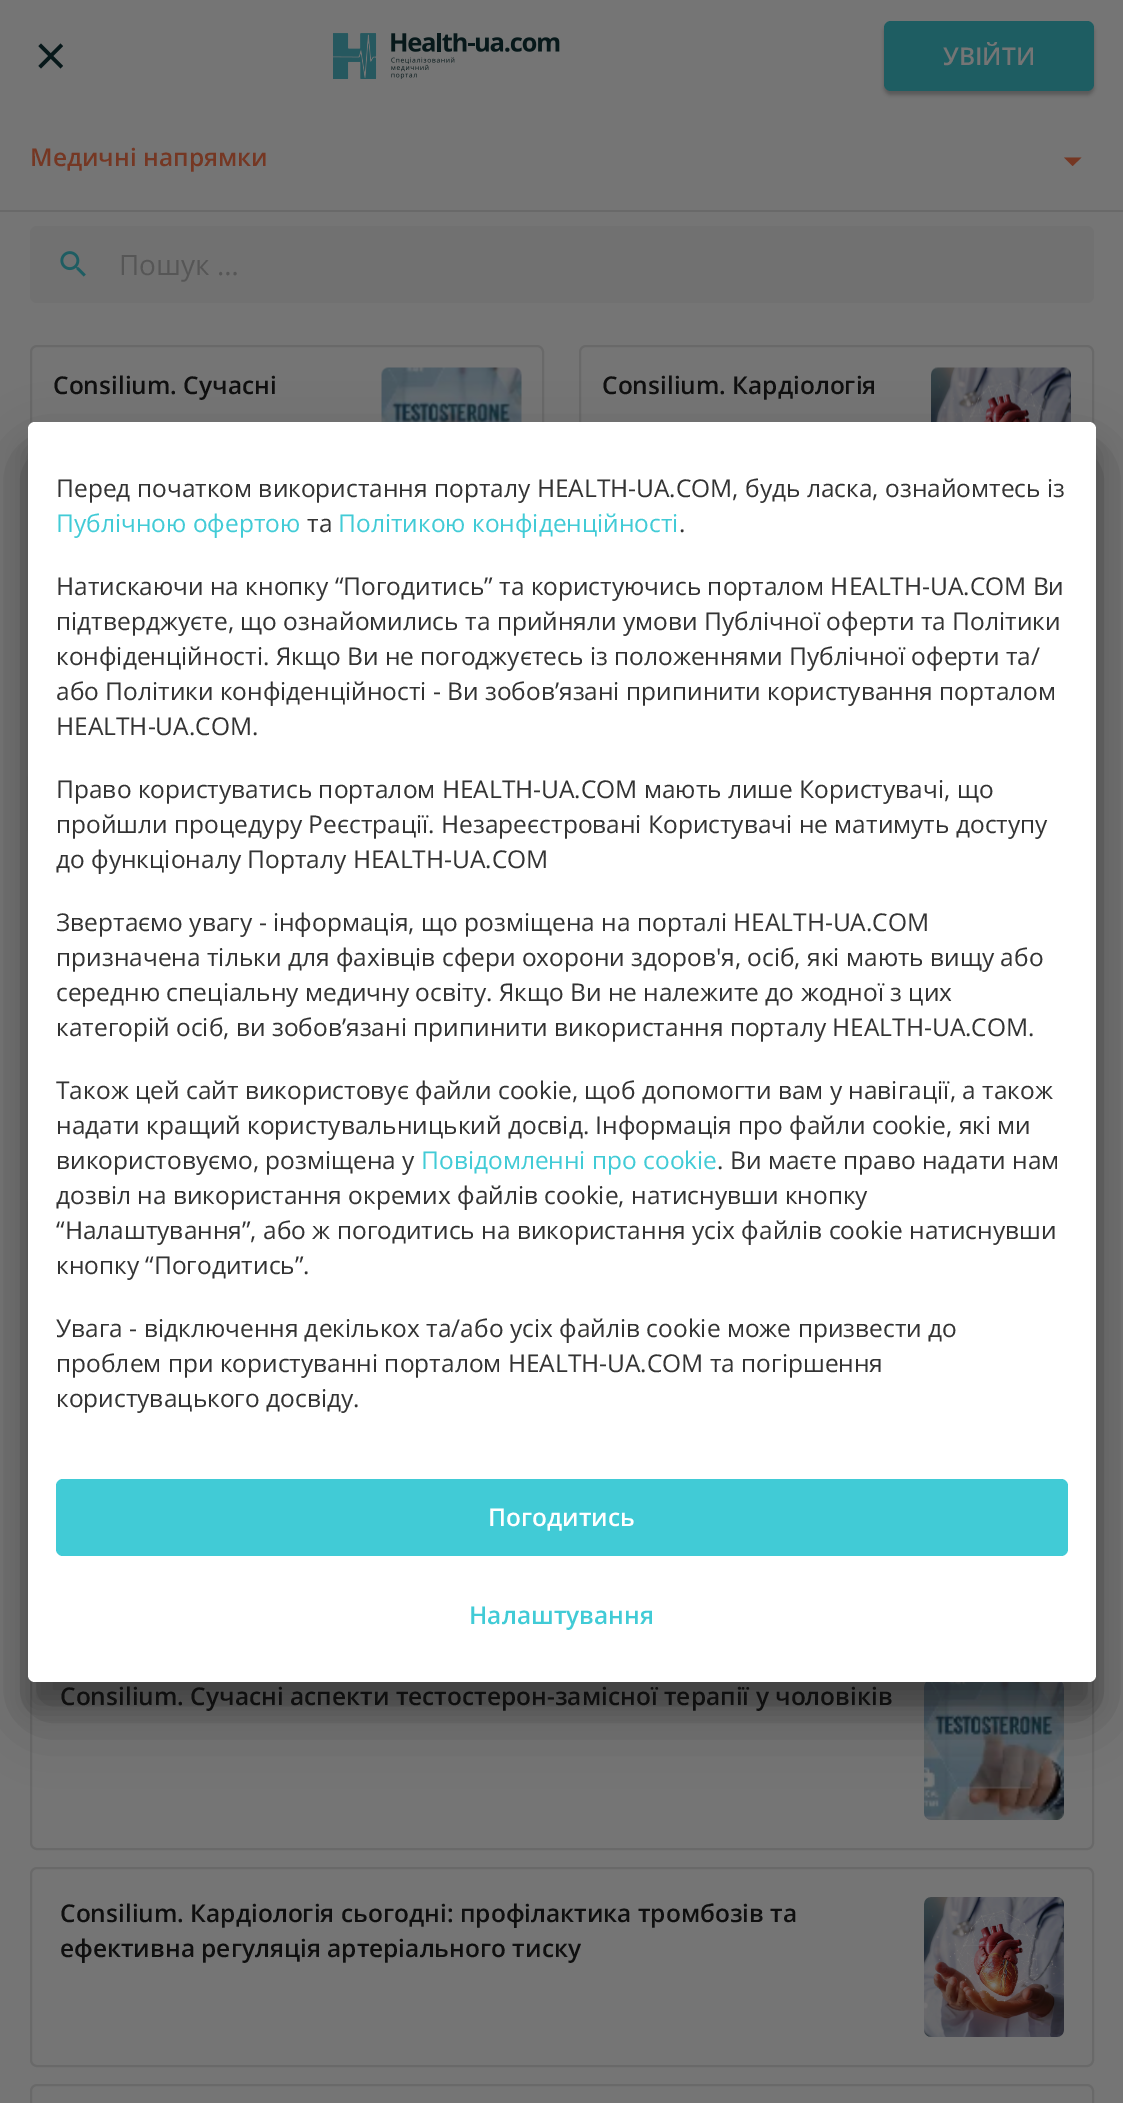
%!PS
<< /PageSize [1123 2103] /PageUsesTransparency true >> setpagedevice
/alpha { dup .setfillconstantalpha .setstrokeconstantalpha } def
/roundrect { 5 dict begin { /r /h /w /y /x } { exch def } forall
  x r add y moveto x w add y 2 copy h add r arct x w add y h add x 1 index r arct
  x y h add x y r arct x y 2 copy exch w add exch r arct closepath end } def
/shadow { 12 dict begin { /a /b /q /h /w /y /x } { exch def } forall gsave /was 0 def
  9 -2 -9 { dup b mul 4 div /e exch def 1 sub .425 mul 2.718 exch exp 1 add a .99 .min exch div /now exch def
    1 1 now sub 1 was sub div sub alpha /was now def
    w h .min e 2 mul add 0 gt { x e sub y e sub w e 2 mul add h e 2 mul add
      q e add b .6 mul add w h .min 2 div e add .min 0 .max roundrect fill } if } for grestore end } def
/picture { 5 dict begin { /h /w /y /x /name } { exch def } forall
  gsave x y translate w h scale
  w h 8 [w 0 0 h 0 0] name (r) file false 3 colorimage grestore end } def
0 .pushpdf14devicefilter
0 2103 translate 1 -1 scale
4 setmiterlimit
0.459 setgray
0 0 1123 2103 rectfill
0.027 0.094 0.102 setrgbcolor
newpath 41 43.5 moveto 63 66 lineto 60.5 68.5 lineto 38.5 46 lineto closepath fill
newpath 38.5 66 moveto 60.5 43.5 lineto 63 46 lineto 41 68.5 lineto closepath fill
(img1.rgb) 333 33 227 46 picture
0 setgray
884 25 210 70 7 2 0.24 shadow
0.118 0.365 0.384 setrgbcolor
884 21 210 70 7 roundrect fill
/OpenSans-SemiBold [24.5 0 0 -24.5 0 0] selectfont
0.459 setgray
943 65 moveto (УВІЙТИ) show
0.412 setgray
0 210 1123 2 rectfill
0.459 0.216 0.137 setrgbcolor
30 166 moveto (Медичні напрямки) show
newpath 1064 157.5 moveto 1072.5 166 lineto 1081.5 157.5 lineto closepath fill
0.443 setgray
30 226 1064 77 7 roundrect fill
(img2.rgb) 60 251 26 26 picture
/OpenSans-Regular [28 0 0 -28 0 0] selectfont
0.337 setgray
119 275 moveto (Пошук …) show
0.412 setgray
2 setlinewidth
31 346 512 183 6 roundrect stroke
/OpenSans-SemiBold [24.5 0 0 -24.5 0 0] selectfont
0.059 setgray
53 394 moveto (Consilium. Сучасні) show
(img3.rgb) 381 367 141 55 picture
0.412 setgray
580 346 513 183 6 roundrect stroke
0.059 setgray
602 394 moveto (Consilium. Кардіологія) show
(img4.rgb) 931 367 140 55 picture
0.412 setgray
31 1651 1062 198 6 roundrect stroke
(img5.rgb) 924 1682 140 138 picture
0 setgray
28 448 1068 1260 7 10.5 0.22 shadow
28 455 1068 1260 7 33 0.3 shadow
30 772 325 63 7 2 0.24 shadow
30 1197 850 77 7 2 0.24 shadow
1 setgray
28 422 1068 1260 7 roundrect fill
/OpenSans-Regular [24.5 0 0 -24.5 0 0] selectfont
0.2 setgray
56 497 moveto (Перед початком використання порталу HEALTH-UA.COM, будь ласка, ознайомтесь із) show
0.255 0.796 0.839 setrgbcolor
56 532 moveto (Публічною офертою) show
0.2 setgray
307 532 moveto (та) show
0.255 0.796 0.839 setrgbcolor
338 532 moveto (Політикою конфіденційності) show
0.2 setgray
679 532 moveto (.) show
56 595 moveto (Натискаючи на кнопку “Погодитись” та користуючись порталом HEALTH-UA.COM Ви) show
56 630 moveto (підтверджуєте, що ознайомились та прийняли умови Публічної оферти та Політики) show
56 665 moveto (конфіденційності. Якщо Ви не погоджуєтесь із положеннями Публічної оферти та/) show
56 700 moveto (або Політики конфіденційності - Ви зобов’язані припинити користування порталом) show
56 735 moveto (HEALTH-UA.COM.) show
56 798 moveto (Право користуватись порталом HEALTH-UA.COM мають лише Користувачі, що) show
56 833 moveto (пройшли процедуру Реєстрації. Незареєстровані Користувачі не матимуть доступу) show
56 868 moveto (до функціоналу Порталу HEALTH-UA.COM) show
56 931 moveto (Звертаємо увагу - інформація, що розміщена на порталі HEALTH-UA.COM) show
56 966 moveto (призначена тільки для фахівців сфери охорони здоров'я, осіб, які мають вищу або) show
56 1001 moveto (середню спеціальну медичну освіту. Якщо Ви не належите до жодної з цих) show
56 1036 moveto (категорій осіб, ви зобов’язані припинити використання порталу HEALTH-UA.COM.) show
56 1099 moveto (Також цей сайт використовує файли cookie, щоб допомогти вам у навігації, а також) show
56 1134 moveto (надати кращий користувальницький досвід. Інформація про файли cookie, які ми) show
56 1169 moveto (використовуємо, розміщена у) show
0.255 0.796 0.839 setrgbcolor
421 1169 moveto (Повідомленні про cookie) show
0.2 setgray
717 1169 moveto (. Ви маєте право надати нам) show
56 1204 moveto (дозвіл на використання окремих файлів cookie, натиснувши кнопку) show
56 1239 moveto (“Налаштування”, або ж погодитись на використання усіх файлів cookie натиснувши) show
56 1274 moveto (кнопку “Погодитись”.) show
56 1337 moveto (Увага - відключення декількох та/або усіх файлів cookie може призвести до) show
56 1372 moveto (проблем при користуванні порталом HEALTH-UA.COM та погіршення) show
56 1407 moveto (користувацького досвіду.) show
0.255 0.796 0.839 setrgbcolor
56 1479 1012 77 7 roundrect fill
/OpenSans-SemiBold [24.5 0 0 -24.5 0 0] selectfont
1 setgray
488 1526 moveto (Погодитись) show
0.255 0.796 0.839 setrgbcolor
469 1624 moveto (Налаштування) show
0.059 setgray
60 1705 moveto (Consilium. Сучасні аспекти тестостерон-замісної терапії у чоловіків) show
0.412 setgray
31 1868 1062 198 6 roundrect stroke
0.059 setgray
60 1922 moveto (Consilium. Кардіологія сьогодні: профілактика тромбозів та) show
60 1957 moveto (ефективна регуляція артеріального тиску) show
(img6.rgb) 924 1897 140 140 picture
0.412 setgray
31 2085 1062 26 6 roundrect stroke
.poppdf14devicefilter showpage
